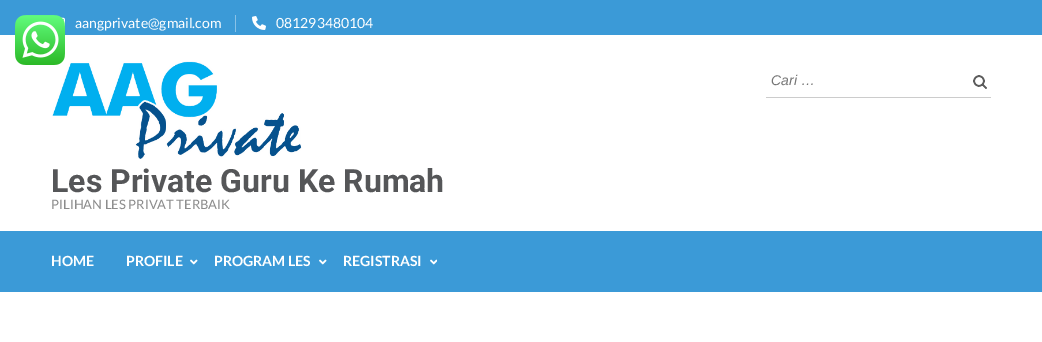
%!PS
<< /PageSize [1042 342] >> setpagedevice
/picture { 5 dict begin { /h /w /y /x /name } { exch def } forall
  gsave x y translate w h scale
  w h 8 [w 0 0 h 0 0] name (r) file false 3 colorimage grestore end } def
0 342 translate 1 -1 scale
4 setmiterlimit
1 setgray
0 0 1042 342 rectfill
0.231 0.604 0.843 setrgbcolor
0 0 1042 35 rectfill
(img2.rgb) 60 17 5 10 picture
(img5.rgb) 52 61 250 98 picture
(img1.rgb) 15 15 50 50 picture
/Lato-Regular [14 0 0 -14 0 0] selectfont
1 setgray
75 28 moveto (aangprivate@gmail.com) show
0.537 0.761 0.906 setrgbcolor
235 15 1 17 rectfill
(img3.rgb) 252 16 14 14 picture
1 setgray
276 28 moveto (081293480104) show
0.8 setgray
766 97 225 1 rectfill
/LiberationSans-Italic [14 0 0 -14 0 0] selectfont
0.459 setgray
771 85 moveto (Cari …) show
(img4.rgb) 973 75 14 14 picture
/Roboto-Bold [32 0 0 -32 0 0] selectfont
0.333 0.337 0.345 setrgbcolor
51 192 moveto (Les Private Guru Ke Rumah) show
/Lato-Regular [13 0 0 -13 0 0] selectfont
0.549 setgray
51 209 moveto (PILIHAN LES PRIVAT TERBAIK) show
0.231 0.604 0.843 setrgbcolor
0 231 1042 61 rectfill
/Lato-Bold [14 0 0 -14 0 0] selectfont
1 setgray
51 266 moveto (HOME) show
126 266 moveto (PROFILE) show
(img6.rgb) 190 259 8 6 picture
214 266 moveto (PROGRAM LES) show
(img6.rgb) 319 259 8 6 picture
343 266 moveto (REGISTRASI) show
(img7.rgb) 430 259 7 6 picture
showpage
